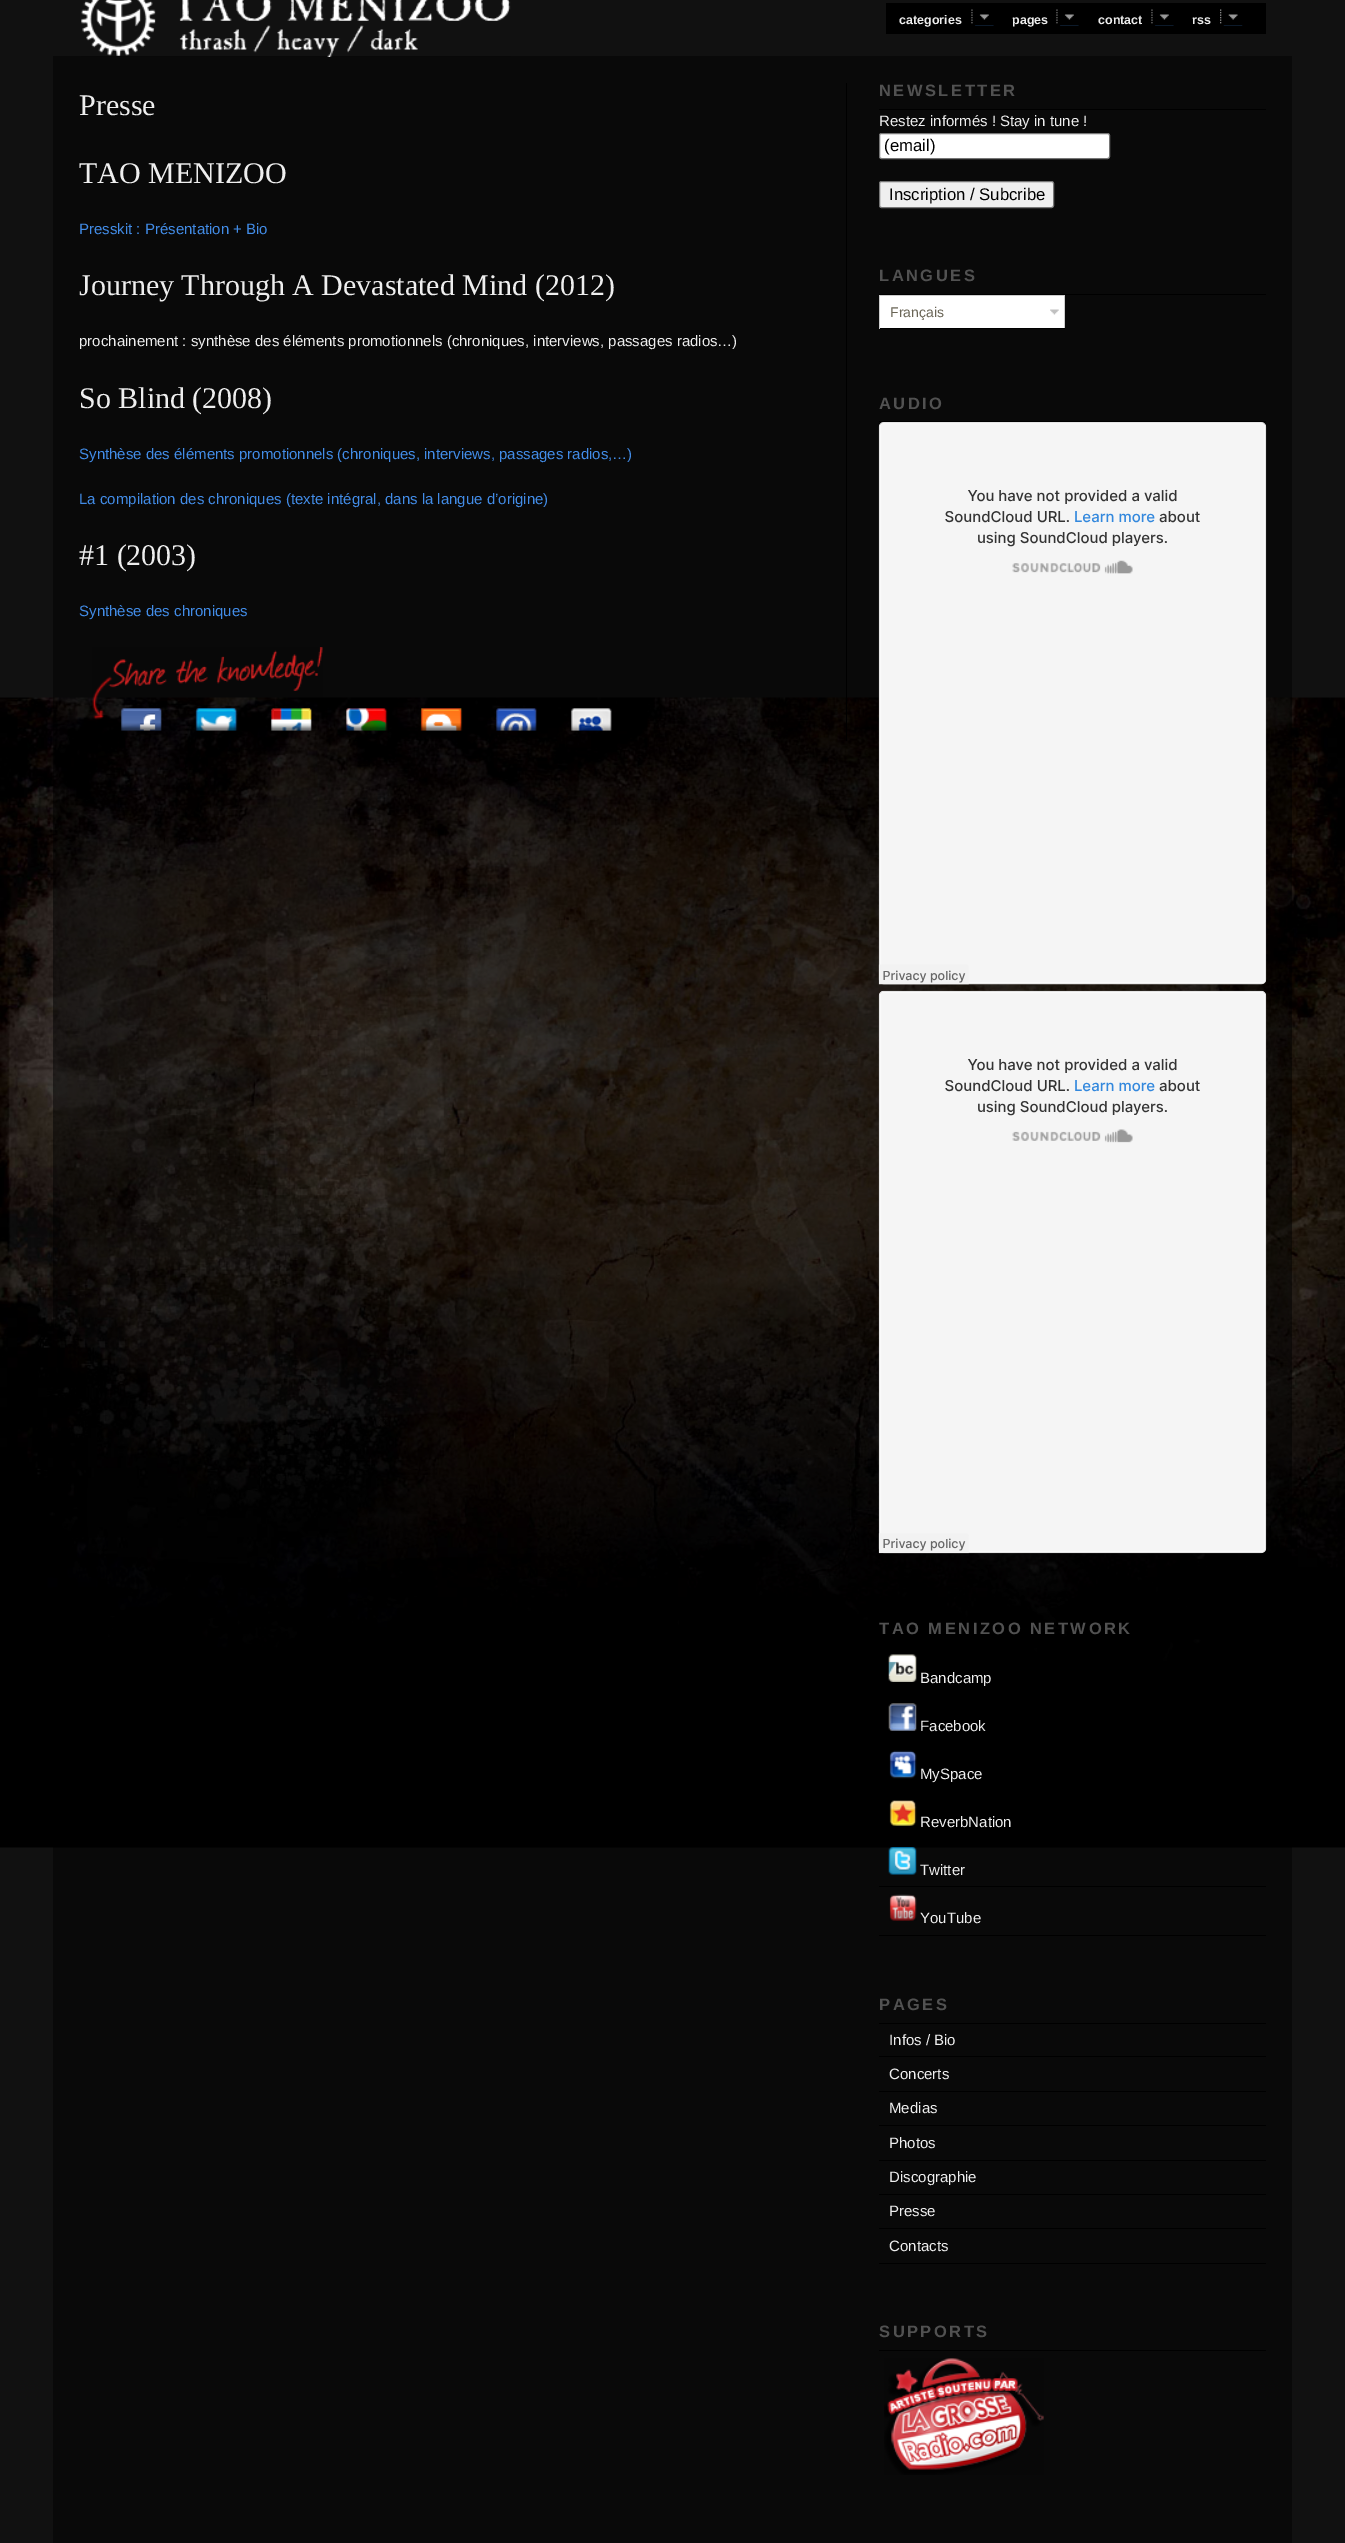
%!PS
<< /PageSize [1345 2543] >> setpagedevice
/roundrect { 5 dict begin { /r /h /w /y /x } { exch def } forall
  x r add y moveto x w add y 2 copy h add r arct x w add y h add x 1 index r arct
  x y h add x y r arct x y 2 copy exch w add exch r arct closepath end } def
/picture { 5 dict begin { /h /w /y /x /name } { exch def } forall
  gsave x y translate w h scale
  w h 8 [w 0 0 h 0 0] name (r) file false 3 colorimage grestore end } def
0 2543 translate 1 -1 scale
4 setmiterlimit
0.067 setgray
0 0 1345 2543 rectfill
0.035 setgray
53 56 1239 2487 rectfill
(img1.rgb) 0 697 1345 1151 picture
(img2.rgb) 81 0 430 57 picture
0 setgray
886 3 380 31 rectfill
/LiberationSans-Bold [12.5 0 0 -12.5 0 0] selectfont
0.933 setgray
899 24 moveto (categories) show
(img3.rgb) 971 9 23 17 picture
1012 24 moveto (pages) show
(img3.rgb) 1056 9 23 17 picture
1098 24 moveto (contact) show
(img3.rgb) 1151 9 23 17 picture
1192 24 moveto (rss) show
(img4.rgb) 1220 9 23 17 picture
0 setgray
846 83 1 658 rectfill
/LiberationSerif-Regular [30 0 0 -30 0 0] selectfont
0.933 setgray
79 115 moveto (Presse) show
79 183 moveto (TAO MENIZOO) show
/LiberationSans-Regular [15 0 0 -15 0 0] selectfont
0.259 0.549 0.906 setrgbcolor
79 234 moveto (Presskit : Présentation + Bio) show
/LiberationSerif-Regular [30 0 0 -30 0 0] selectfont
0.933 setgray
79 295 moveto (Journey Through A Devastated Mind \(2012\)) show
/LiberationSans-Regular [15 0 0 -15 0 0] selectfont
79 346 moveto (prochainement : synthèse des éléments promotionnels \(chroniques, interviews, passages radios…\)) show
/LiberationSerif-Regular [30 0 0 -30 0 0] selectfont
79 408 moveto (So Blind \(2008\)) show
/LiberationSans-Regular [15 0 0 -15 0 0] selectfont
0.259 0.549 0.906 setrgbcolor
79 459 moveto (Synthèse des éléments promotionnels \(chroniques, interviews, passages radios,…\)) show
79 504 moveto (La compilation des chroniques \(texte intégral, dans la langue d’origine\)) show
/LiberationSerif-Regular [30 0 0 -30 0 0] selectfont
0.933 setgray
79 565 moveto (#1 \(2003\)) show
/LiberationSans-Regular [15 0 0 -15 0 0] selectfont
0.259 0.549 0.906 setrgbcolor
79 616 moveto (Synthèse des chroniques) show
(img5.rgb) 92 647 231 73 picture
(img6.rgb) 121 708 41 23 picture
(img7.rgb) 195 708 43 23 picture
(img8.rgb) 271 708 45 23 picture
(img9.rgb) 346 708 42 23 picture
(img10.rgb) 420 708 43 23 picture
(img11.rgb) 496 708 41 23 picture
(img12.rgb) 569 708 43 23 picture
0 setgray
879 109 387 1 rectfill
/LiberationSans-Bold [16.5 0 0 -16.5 0 0] selectfont
0.318 setgray
879 96 moveto 2.5 0 (NEWSLETTER) ashow
/LiberationSans-Regular [15 0 0 -15 0 0] selectfont
0.933 setgray
879 126 moveto (Restez informés ! Stay in tune !) show
1 setgray
879.5 133.5 230 25 2 roundrect gsave fill grestore
0.463 setgray
stroke
/LiberationSans-Regular [16.75 0 0 -16.75 0 0] selectfont
0 setgray
884 151 moveto (\(email\)) show
0.937 setgray
879.5 181.5 174 26 2 roundrect gsave fill grestore
0.463 setgray
stroke
0 setgray
889 200 moveto (Inscription / Subcribe) show
879 294 387 1 rectfill
/LiberationSans-Bold [16.5 0 0 -16.5 0 0] selectfont
0.318 setgray
879 281 moveto 2.5 0 (LANGUES) ashow
1 setgray
880 296 184 32 rectfill
(img13.rgb) 1050 309 9 6 picture
0.804 setgray
879 295 186 1 rectfill
1064 295 1 34 rectfill
0 setgray
879 328 186 1 rectfill
0.804 setgray
879 295 1 34 rectfill
/LiberationSans-Regular [14 0 0 -14 0 0] selectfont
0.412 0.392 0.333 setrgbcolor
890 317 moveto (Français) show
0 setgray
879 421 387 1 rectfill
/LiberationSans-Bold [16.5 0 0 -16.5 0 0] selectfont
0.318 setgray
879 409 moveto 2.5 0 (AUDIO) ashow
(img14.rgb) 878 422 389 563 picture
(img15.rgb) 878 990 389 564 picture
879 1634 moveto 2.5 0 (TAO MENIZOO NETWORK) ashow
(img16.rgb) 888 1654 29 28 picture
/LiberationSans-Regular [15 0 0 -15 0 0] selectfont
0.933 setgray
920 1683 moveto (Bandcamp) show
(img17.rgb) 888 1703 29 28 picture
920 1731 moveto (Facebook) show
(img18.rgb) 889 1750 28 29 picture
920 1779 moveto (MySpace) show
(img19.rgb) 889 1800 28 26 picture
920 1827 moveto (ReverbNation) show
0 setgray
879 1886 387 1 rectfill
(img20.rgb) 888 1847 29 28 picture
0.933 setgray
920 1875 moveto (Twitter) show
0 setgray
879 1935 387 1 rectfill
(img21.rgb) 889 1894 28 27 picture
0.933 setgray
920 1923 moveto (YouTube) show
0 setgray
879 2023 387 1 rectfill
/LiberationSans-Bold [16.5 0 0 -16.5 0 0] selectfont
0.318 setgray
879 2010 moveto 2.5 0 (PAGES) ashow
0 setgray
879 2056 387 1 rectfill
/LiberationSans-Regular [15 0 0 -15 0 0] selectfont
0.933 setgray
889 2045 moveto (Infos / Bio) show
0 setgray
879 2091 387 1 rectfill
0.933 setgray
889 2079 moveto (Concerts) show
0 setgray
879 2125 387 1 rectfill
0.933 setgray
889 2113 moveto (Medias) show
0 setgray
879 2160 387 1 rectfill
0.933 setgray
889 2148 moveto (Photos) show
0 setgray
879 2194 387 1 rectfill
0.933 setgray
889 2182 moveto (Discographie) show
0 setgray
879 2228 387 1 rectfill
0.933 setgray
889 2216 moveto (Presse) show
0 setgray
879 2263 387 1 rectfill
0.933 setgray
889 2251 moveto (Contacts) show
0 setgray
879 2350 387 1 rectfill
/LiberationSans-Bold [16.5 0 0 -16.5 0 0] selectfont
0.318 setgray
879 2337 moveto 2.5 0 (SUPPORTS) ashow
(img22.rgb) 884 2358 160 117 picture
showpage
